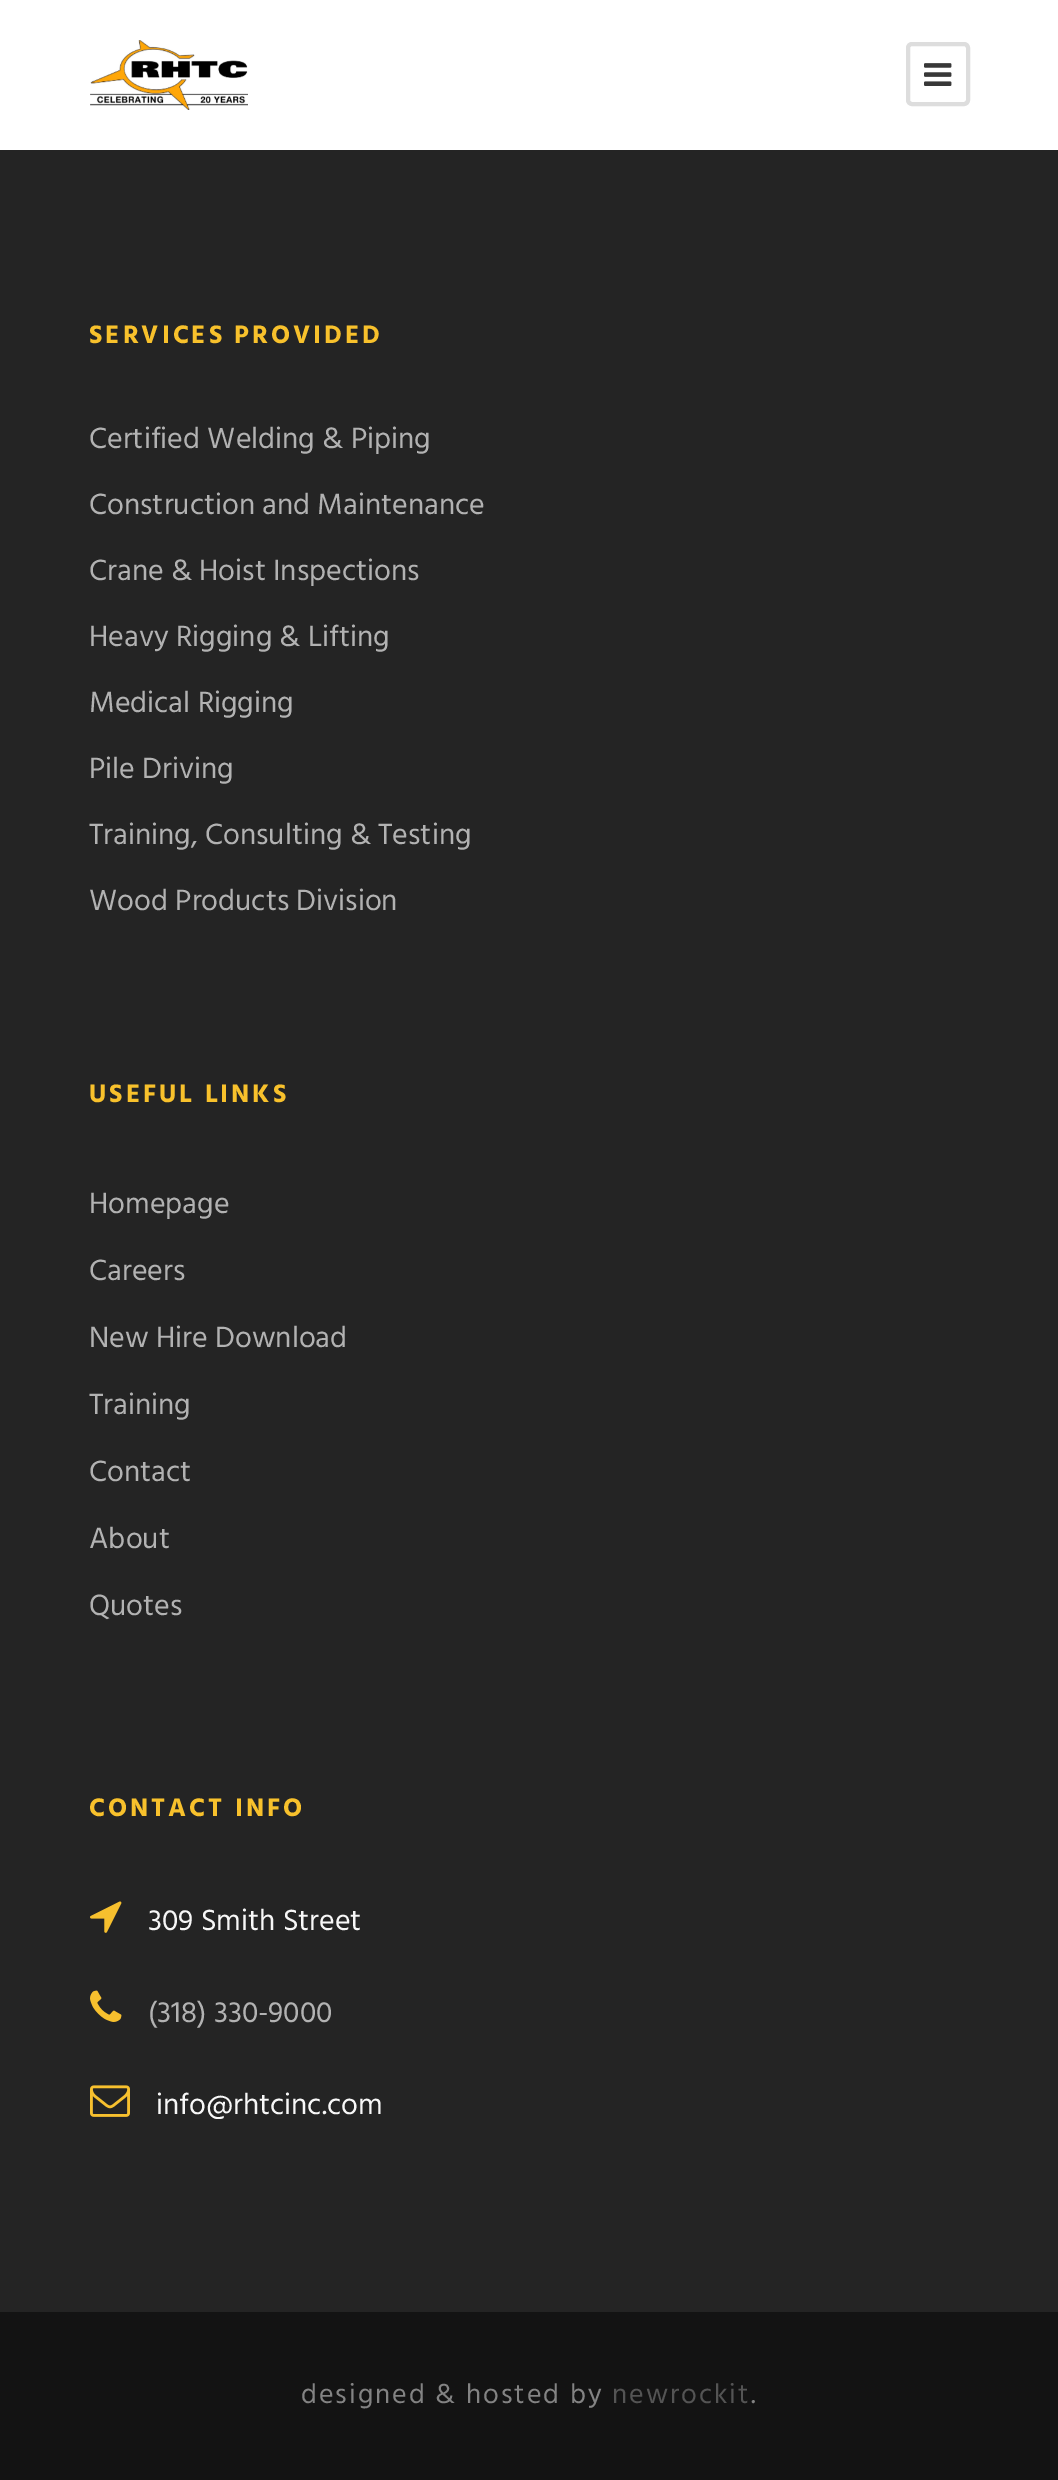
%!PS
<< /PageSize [1058 2480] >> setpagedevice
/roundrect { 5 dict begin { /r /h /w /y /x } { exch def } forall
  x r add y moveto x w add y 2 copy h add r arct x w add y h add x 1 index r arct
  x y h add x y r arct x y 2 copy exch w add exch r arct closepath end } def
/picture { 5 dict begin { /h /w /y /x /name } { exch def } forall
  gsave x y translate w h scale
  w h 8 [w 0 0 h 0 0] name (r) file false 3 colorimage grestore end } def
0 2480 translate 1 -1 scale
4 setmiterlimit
0.141 setgray
0 0 1058 2480 rectfill
1 setgray
0 0 1058 150 rectfill
(img1.rgb) 90 40 158 70 picture
0.867 setgray
4 setlinewidth
908 44 60 60 4 roundrect stroke
(img2.rgb) 924 63 28 23 picture
/Hind-Bold [26 0 0 -26 0 0] selectfont
0.973 0.757 0.173 setrgbcolor
89 343 moveto 3 0 (SERVICES PROVIDED) ashow
/Hind-Regular [30 0 0 -30 0 0] selectfont
0.698 setgray
89 448 moveto (Certified Welding & Piping) show
89 514 moveto (Construction and Maintenance) show
89 580 moveto (Crane & Hoist Inspections) show
89 646 moveto (Heavy Rigging & Lifting) show
89 712 moveto (Medical Rigging) show
89 778 moveto (Pile Driving) show
89 844 moveto (Training, Consulting & Testing) show
89 910 moveto (Wood Products Division) show
/Hind-Bold [26 0 0 -26 0 0] selectfont
0.973 0.757 0.173 setrgbcolor
89 1102 moveto 3 0 (USEFUL LINKS) ashow
/Hind-Regular [30 0 0 -30 0 0] selectfont
0.698 setgray
89 1213 moveto (Homepage) show
89 1280 moveto (Careers) show
89 1347 moveto (New Hire Download) show
89 1414 moveto (Training) show
89 1481 moveto (Contact) show
89 1548 moveto (About) show
89 1615 moveto (Quotes) show
/Hind-Bold [26 0 0 -26 0 0] selectfont
0.973 0.757 0.173 setrgbcolor
89 1816 moveto 3 0 (CONTACT INFO) ashow
(img3.rgb) 90 1901 32 32 picture
/Hind-Regular [30 0 0 -30 0 0] selectfont
0.969 setgray
148 1930 moveto (309 Smith Street) show
(img4.rgb) 90 1990 32 32 picture
0.698 setgray
148 2022 moveto (\(318\) 330-9000) show
(img5.rgb) 90 2085 40 32 picture
0.969 setgray
156 2114 moveto (info@rhtcinc.com) show
0.075 setgray
0 2312 1058 168 rectfill
/Hind-Regular [28 0 0 -28 0 0] selectfont
0.514 setgray
301 2403 moveto 2 0 (designed & hosted by) ashow
0.329 setgray
612 2403 moveto 2 0 (newrockit) ashow
0.514 setgray
751 2403 moveto 2 0 (.) ashow
showpage
